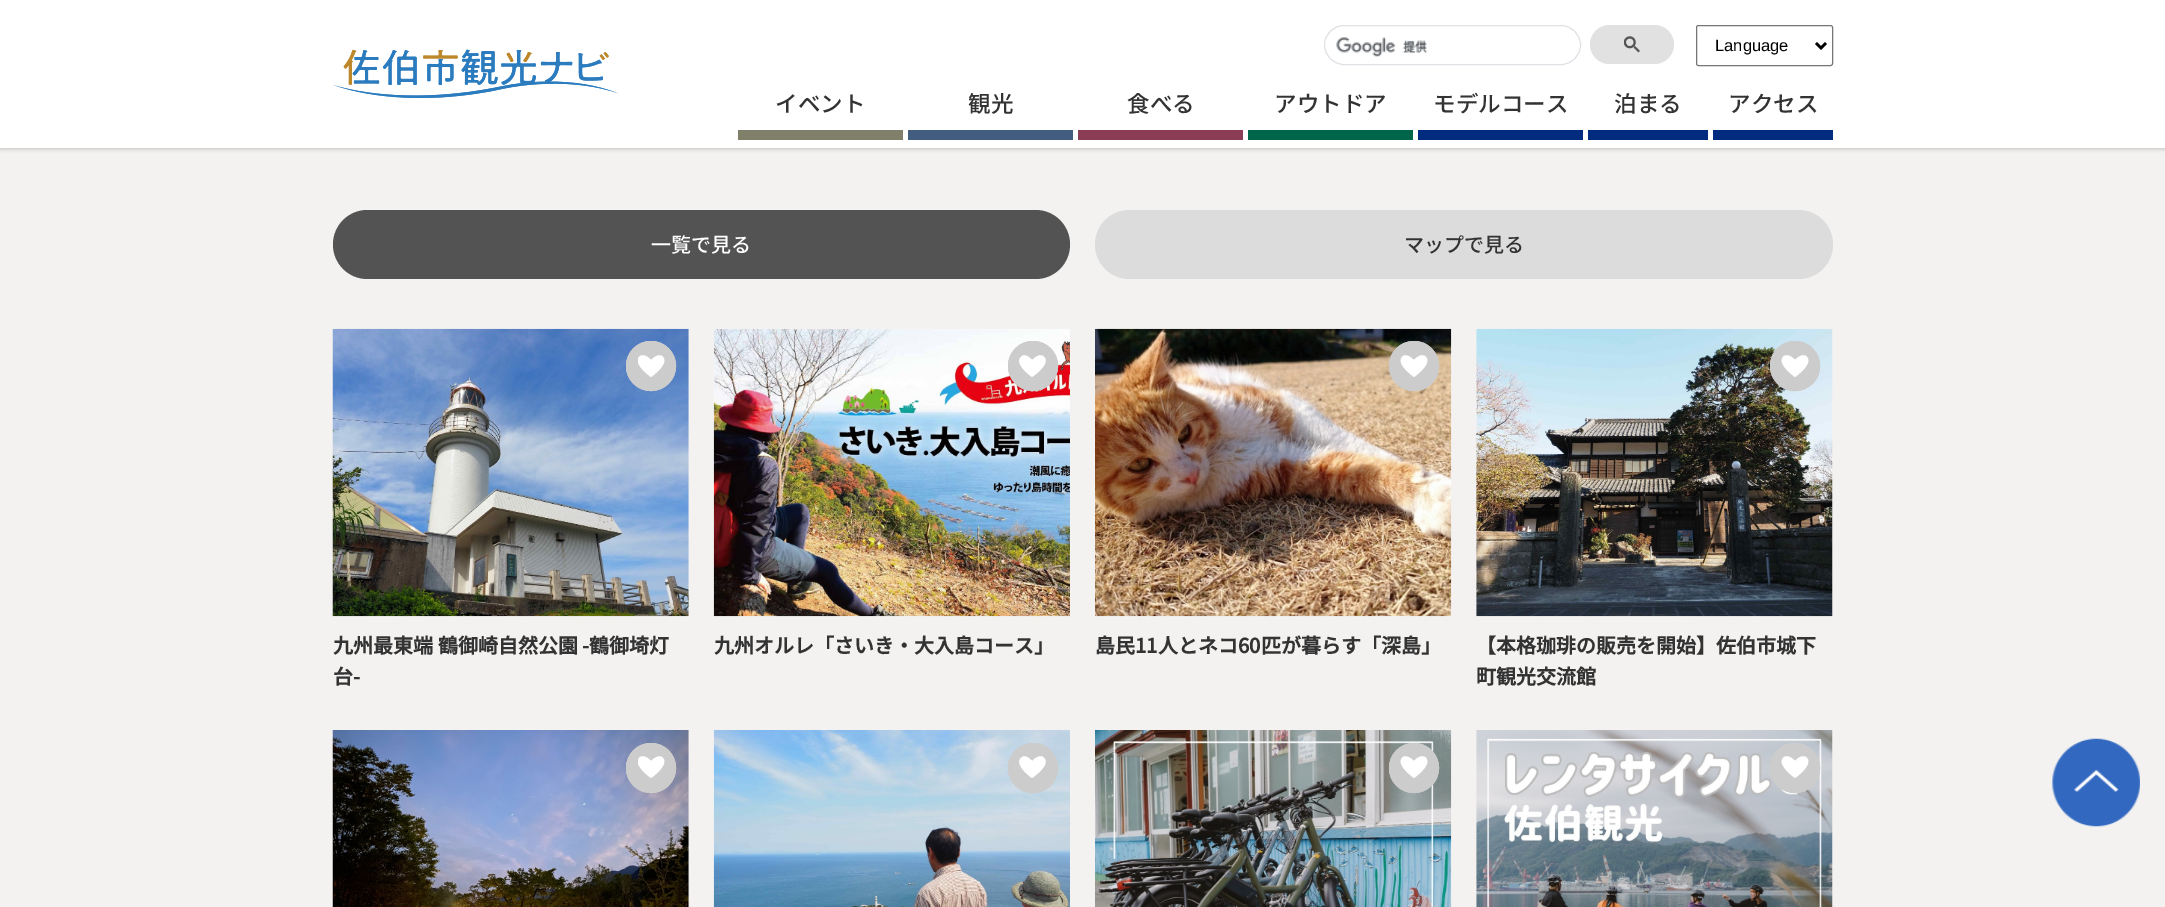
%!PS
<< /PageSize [2165 907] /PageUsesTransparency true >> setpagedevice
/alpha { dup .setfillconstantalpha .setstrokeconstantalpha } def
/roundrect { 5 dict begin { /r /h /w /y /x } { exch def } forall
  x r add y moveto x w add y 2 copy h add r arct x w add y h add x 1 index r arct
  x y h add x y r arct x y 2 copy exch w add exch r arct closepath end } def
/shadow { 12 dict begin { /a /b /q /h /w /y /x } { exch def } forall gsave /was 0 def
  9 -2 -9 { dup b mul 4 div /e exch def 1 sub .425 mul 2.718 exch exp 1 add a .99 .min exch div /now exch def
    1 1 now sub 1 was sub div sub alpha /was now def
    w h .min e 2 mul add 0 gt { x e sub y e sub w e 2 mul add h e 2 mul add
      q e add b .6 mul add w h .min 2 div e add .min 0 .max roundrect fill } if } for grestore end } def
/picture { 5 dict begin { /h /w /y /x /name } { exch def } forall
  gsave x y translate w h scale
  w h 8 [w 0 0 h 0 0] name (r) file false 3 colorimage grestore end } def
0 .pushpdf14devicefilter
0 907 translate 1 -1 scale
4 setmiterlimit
0.953 0.949 0.945 setrgbcolor
0 0 2165 907 rectfill
0 setgray
0 1 2165 148 0 2 0.2 shadow
1 setgray
0 0 2165 148 rectfill
0.875 0.882 0.898 setrgbcolor
1324.5 25.5 256 39 19.5 roundrect stroke
(img1.rgb) 1336 37 91 20 picture
0.882 setgray
1590 25 84 39 19.5 roundrect fill
(img2.rgb) 1624 36 16 17 picture
0.463 setgray
1696.5 25.5 136 40 2 roundrect stroke
0 setgray
2.5 setlinewidth
newpath 1816 43 moveto 1821 48 lineto 1826 43 lineto stroke
/LiberationSans-Regular [16.5 0 0 -16.5 0 0] selectfont
1715 51 moveto (Language) show
(img3.rgb) 333 49 286 49 picture
(img4.rgb) 333 49 286 49 picture
0.502 0.498 0.412 setrgbcolor
738 130 165 10 rectfill
/NotoSansJP-Medium [22.5 0 0 -22.5 0 0] selectfont
0.2 setgray
775 112 moveto (イベント) show
0.263 0.365 0.502 setrgbcolor
908 130 165 10 rectfill
0.2 setgray
968 112 moveto (観光) show
0.545 0.239 0.337 setrgbcolor
1078 130 165 10 rectfill
0.2 setgray
1127 112 moveto (食べる) show
0 0.4 0.294 setrgbcolor
1248 130 165 10 rectfill
0.2 setgray
1274 112 moveto (アウトドア) show
0 0.169 0.498 setrgbcolor
1418 130 165 10 rectfill
0.2 setgray
1433 112 moveto (モデルコース) show
0 0.169 0.498 setrgbcolor
1588 130 120 10 rectfill
0.2 setgray
1614 112 moveto (泊まる) show
0 0.169 0.498 setrgbcolor
1713 130 120 10 rectfill
0.2 setgray
1728 112 moveto (アクセス) show
0.325 setgray
333 210 737 69 34.5 roundrect fill
/NotoSansJP-Medium [20 0 0 -20 0 0] selectfont
1 setgray
651 252 moveto (一覧で見る) show
0.863 setgray
1095 210 738 69 34.5 roundrect fill
0.2 setgray
1404 252 moveto (マップで見る) show
(img5.rgb) 332 328 357 289 picture
0.8 setgray
newpath 651 366 25 0 360 arc closepath fill
gsave
638 355 27 23 rectclip
1 setgray
newpath 662 356 moveto 658 353 651 360 651 360 curveto 651 360 645 353 640 356 curveto 631 363 651 377 651 377 curveto 651 377 671 363 662 356 curveto closepath fill
grestore
1 setlinewidth
newpath 651 366 24.5 0 360 arc closepath stroke
/NotoSansJP-Bold [20 0 0 -20 0 0] selectfont
0.2 setgray
333 653 moveto (九州最東端 鶴御崎自然公園 -鶴御埼灯) show
333 684 moveto (台-) show
(img6.rgb) 713 328 357 289 picture
0.8 setgray
newpath 1033 366 25 0 360 arc closepath fill
1 setgray
newpath 1043 356 moveto 1039 353 1032 360 1032 360 curveto 1032 360 1026 353 1022 356 curveto 1012 363 1032 377 1032 377 curveto 1032 377 1053 363 1043 356 curveto closepath fill
0.8 setgray
newpath 1033 366 24.5 0 360 arc closepath stroke
0.2 setgray
714 653 moveto (九州オルレ「さいき・大入島コース」) show
(img7.rgb) 1095 328 357 289 picture
0.8 setgray
newpath 1414 366 25 0 360 arc closepath fill
1 setgray
newpath 1425 356 moveto 1420 353 1414 360 1414 360 curveto 1414 360 1407 353 1403 356 curveto 1394 363 1414 377 1414 377 curveto 1414 377 1434 363 1425 356 curveto closepath fill
0.8 setgray
newpath 1414 366 24.5 0 360 arc closepath stroke
0.2 setgray
1095 653 moveto (島民11人とネコ60匹が暮らす「深島」) show
(img8.rgb) 1476 328 357 289 picture
0.8 setgray
newpath 1795 366 25 0 360 arc closepath fill
1 setgray
newpath 1806 356 moveto 1801 353 1795 360 1795 360 curveto 1795 360 1789 353 1784 356 curveto 1775 363 1795 377 1795 377 curveto 1795 377 1815 363 1806 356 curveto closepath fill
0.8 setgray
newpath 1795 366 24.5 0 360 arc closepath stroke
0.2 setgray
1476 653 moveto (【本格珈琲の販売を開始】佐伯市城下) show
1476 684 moveto (町観光交流館) show
(img9.rgb) 332 730 357 177 picture
0.8 setgray
newpath 651 768 25 0 360 arc closepath fill
gsave
638 756 27 23 rectclip
1 setgray
newpath 662 757 moveto 658 754 651 761 651 761 curveto 651 761 645 754 640 757 curveto 631 764 651 778 651 778 curveto 651 778 671 764 662 757 curveto closepath fill
grestore
newpath 651 768 24.5 0 360 arc closepath stroke
(img10.rgb) 713 730 357 177 picture
newpath 1033 768 25 0 360 arc closepath fill
1 setgray
newpath 1043 757 moveto 1039 754 1032 761 1032 761 curveto 1032 761 1026 754 1022 757 curveto 1012 764 1032 778 1032 778 curveto 1032 778 1053 764 1043 757 curveto closepath fill
0.8 setgray
newpath 1033 768 24.5 0 360 arc closepath stroke
(img11.rgb) 1095 730 357 177 picture
newpath 1414 768 25 0 360 arc closepath fill
1 setgray
newpath 1425 757 moveto 1420 754 1414 761 1414 761 curveto 1414 761 1407 754 1403 757 curveto 1394 764 1414 778 1414 778 curveto 1414 778 1434 764 1425 757 curveto closepath fill
0.8 setgray
newpath 1414 768 24.5 0 360 arc closepath stroke
(img12.rgb) 1476 730 357 177 picture
newpath 1795 768 25 0 360 arc closepath fill
1 setgray
newpath 1806 757 moveto 1801 754 1795 761 1795 761 curveto 1795 761 1789 754 1784 757 curveto 1775 764 1795 778 1795 778 curveto 1795 778 1815 764 1806 757 curveto closepath fill
0.8 setgray
newpath 1795 768 24.5 0 360 arc closepath stroke
(img13.rgb) 2052 738 88 89 picture
.poppdf14devicefilter showpage
